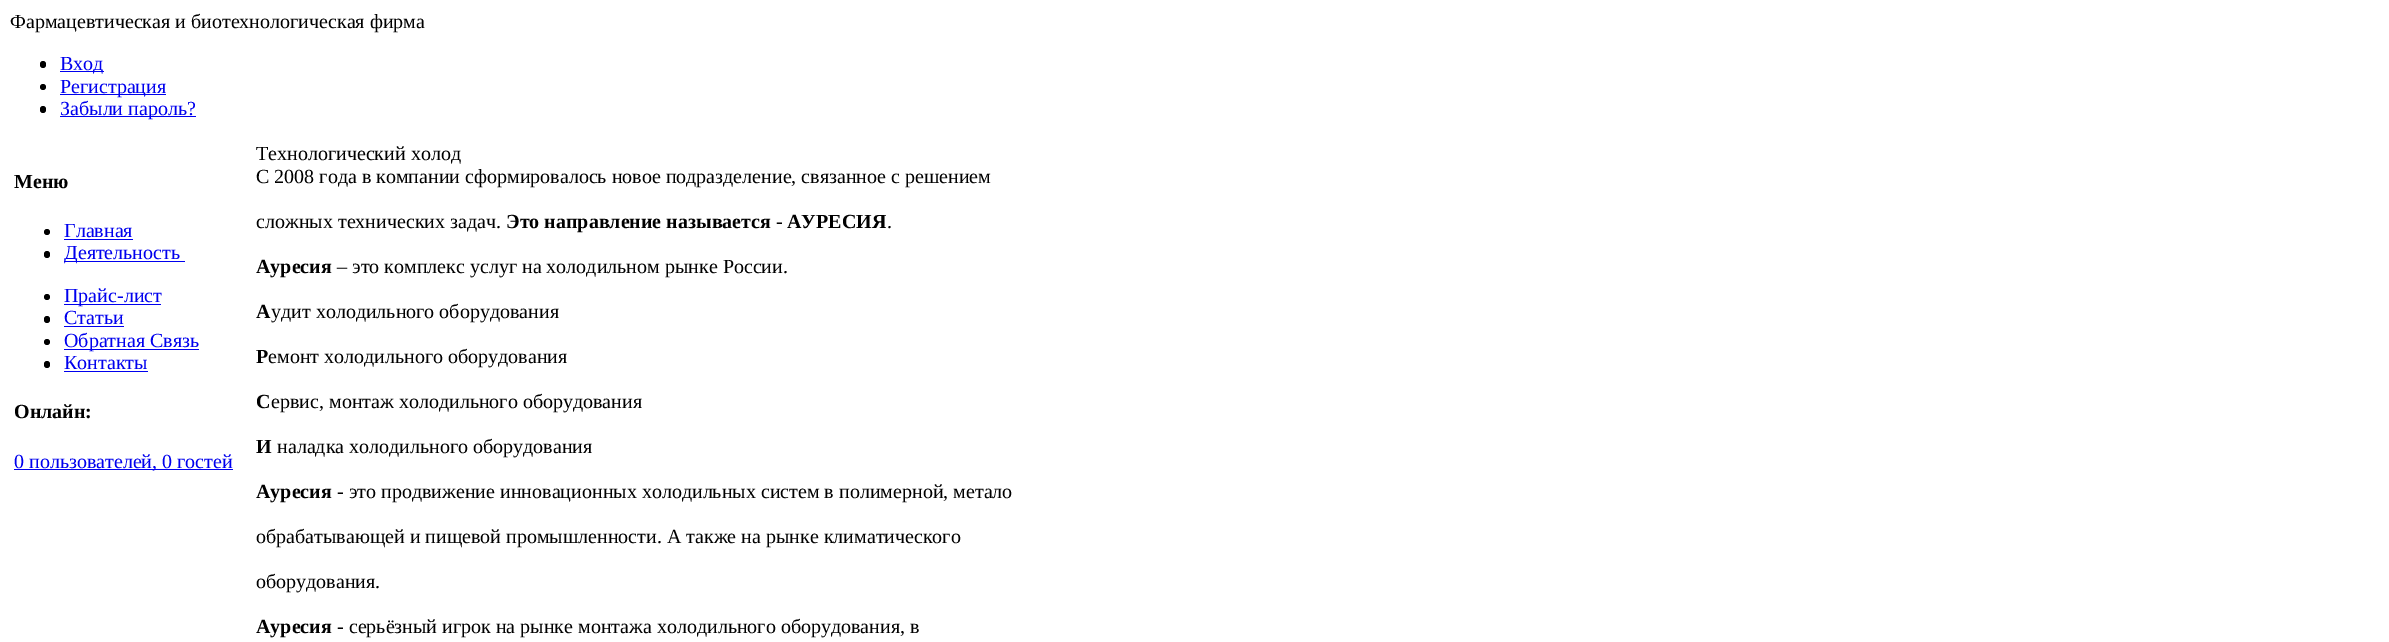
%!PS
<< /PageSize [2389 642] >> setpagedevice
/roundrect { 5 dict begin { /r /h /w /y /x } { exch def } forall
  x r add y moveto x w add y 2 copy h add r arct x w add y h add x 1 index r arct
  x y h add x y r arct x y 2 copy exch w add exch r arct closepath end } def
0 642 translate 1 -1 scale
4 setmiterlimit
1 setgray
0 0 2389 642 rectfill
/LiberationSerif-Regular [20 0 0 -20 0 0] selectfont
0 setgray
10 28 moveto (Фармацевтическая и биотехнологическая фирма) show
40 61 6 7 3 roundrect fill
0 0 0.933 setrgbcolor
60 71 44 1 rectfill
60 70 moveto (Вход) show
0 setgray
newpath 43 87 3 0 360 arc closepath fill
0 0 0.933 setrgbcolor
60 94 106 1 rectfill
60 93 moveto (Регистрация) show
0 setgray
40 106 6 7 3 roundrect fill
0 0 0.933 setrgbcolor
60 116 136 1 rectfill
60 115 moveto (Забыли пароль?) show
/LiberationSerif-Bold [20 0 0 -20 0 0] selectfont
0 setgray
14 188 moveto (Меню) show
newpath 47 232 3 0 360 arc closepath fill
/LiberationSerif-Regular [20 0 0 -20 0 0] selectfont
0 0 0.933 setrgbcolor
64 237 moveto (Главная) show
64 239 69 1 rectfill
0 setgray
44 251 6 7 3 roundrect fill
0 0 0.933 setrgbcolor
64 261 121 1 rectfill
64 259 moveto (Деятельность) show
0 setgray
newpath 47 297 3 0 360 arc closepath fill
0 0 0.933 setrgbcolor
64 304 97 1 rectfill
64 302 moveto (Прайс-лист) show
0 setgray
44 316 6 7 3 roundrect fill
0 0 0.933 setrgbcolor
64 324 moveto (Статьи) show
64 326 60 1 rectfill
0 setgray
newpath 47 342 3 0 360 arc closepath fill
0 0 0.933 setrgbcolor
64 349 135 1 rectfill
64 347 moveto (Обратная Связь) show
0 setgray
44 361 6 7 3 roundrect fill
0 0 0.933 setrgbcolor
64 369 moveto (Контакты) show
64 371 84 1 rectfill
/LiberationSerif-Bold [20 0 0 -20 0 0] selectfont
0 setgray
14 418 moveto (Онлайн:) show
0 0 0.933 setrgbcolor
14 469 219 1 rectfill
/LiberationSerif-Regular [20 0 0 -20 0 0] selectfont
14 468 moveto (0 пользователей, 0 гостей) show
0 setgray
256 160 moveto (Технологический холод) show
256 183 moveto (С 2008 года в компании сформировалось новое подразделение, связанное с решением) show
256 228 moveto (сложных технических задач.) show
/LiberationSerif-Bold [20 0 0 -20 0 0] selectfont
506 228 moveto (Это направление называется) show
/LiberationSerif-Regular [20 0 0 -20 0 0] selectfont
776 228 moveto (-) show
/LiberationSerif-Bold [20 0 0 -20 0 0] selectfont
787 228 moveto (АУРЕСИЯ) show
/LiberationSerif-Regular [20 0 0 -20 0 0] selectfont
887 228 moveto (.) show
/LiberationSerif-Bold [20 0 0 -20 0 0] selectfont
256 273 moveto (Ауресия) show
/LiberationSerif-Regular [20 0 0 -20 0 0] selectfont
337 273 moveto (– это комплекс услуг на холодильном рынке России.) show
/LiberationSerif-Bold [20 0 0 -20 0 0] selectfont
256 318 moveto (А) show
/LiberationSerif-Regular [20 0 0 -20 0 0] selectfont
271 318 moveto (удит холодильного оборудования) show
/LiberationSerif-Bold [20 0 0 -20 0 0] selectfont
256 363 moveto (Р) show
/LiberationSerif-Regular [20 0 0 -20 0 0] selectfont
268 363 moveto (емонт холодильного оборудования) show
/LiberationSerif-Bold [20 0 0 -20 0 0] selectfont
256 408 moveto (С) show
/LiberationSerif-Regular [20 0 0 -20 0 0] selectfont
271 408 moveto (ервис, монтаж холодильного оборудования) show
/LiberationSerif-Bold [20 0 0 -20 0 0] selectfont
256 453 moveto (И) show
/LiberationSerif-Regular [20 0 0 -20 0 0] selectfont
277 453 moveto (наладка холодильного оборудования) show
/LiberationSerif-Bold [20 0 0 -20 0 0] selectfont
256 498 moveto (Ауресия) show
/LiberationSerif-Regular [20 0 0 -20 0 0] selectfont
337 498 moveto (- это продвижение инновационных холодильных систем в полимерной, метало) show
256 543 moveto (обрабатывающей и пищевой промышленности. А также на рынке климатического) show
256 588 moveto (оборудования.) show
/LiberationSerif-Bold [20 0 0 -20 0 0] selectfont
256 633 moveto (Ауресия) show
/LiberationSerif-Regular [20 0 0 -20 0 0] selectfont
337 633 moveto (- серьёзный игрок на рынке монтажа холодильного оборудования, в) show
showpage
